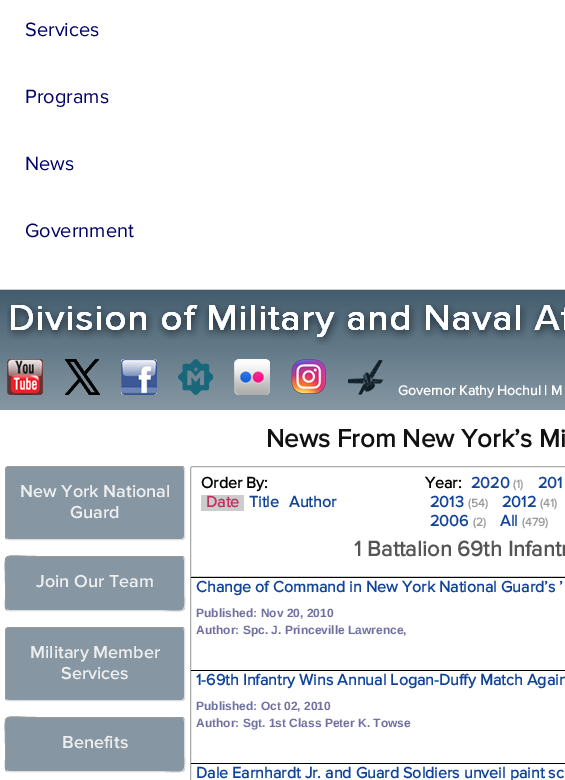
%!PS
<< /PageSize [565 780] >> setpagedevice
/roundrect { 5 dict begin { /r /h /w /y /x } { exch def } forall
  x r add y moveto x w add y 2 copy h add r arct x w add y h add x 1 index r arct
  x y h add x y r arct x y 2 copy exch w add exch r arct closepath end } def
/picture { 5 dict begin { /h /w /y /x /name } { exch def } forall
  gsave x y translate w h scale
  w h 8 [w 0 0 h 0 0] name (r) file false 3 colorimage grestore end } def
0 780 translate 1 -1 scale
4 setmiterlimit
1 setgray
0 0 565 780 rectfill
0.8 setgray
0 289 565 1 rectfill
/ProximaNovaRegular-Regular [20 0 0 -20 0 0] selectfont
0 0 0.4 setrgbcolor
25 36 moveto (Services) show
25 103 moveto (Programs) show
25 170 moveto (News) show
25 237 moveto (Government) show
gsave newpath 0 290 moveto 565 290 lineto 565 410 lineto 0 410 lineto closepath clip newpath
<< /ShadingType 2 /ColorSpace /DeviceRGB /Coords [283 290 283 410] /Extend [true true] /Function << /FunctionType 2 /Domain [0 1] /C0 [0.263 0.365 0.431] /C1 [0.525 0.592 0.639] /N 1 >> >> shfill grestore
(img1.rgb) 7 302 558 43 picture
(img2.rgb) 7 359 36 36 picture
(img3.rgb) 64 359 36 36 picture
(img4.rgb) 121 359 36 36 picture
(img5.rgb) 178 359 35 36 picture
(img6.rgb) 234 359 36 36 picture
(img7.rgb) 291 359 35 35 picture
(img8.rgb) 348 360 36 35 picture
/ProximaNovaRegular-Bold [14 0 0 -14 0 0] selectfont
1 setgray
398 395 moveto (Governor Kathy Hochul | M) show
/ProximaNovaRegular-Bold [26 0 0 -26 0 0] selectfont
0.067 setgray
266 447 moveto (News From New York’s Mi) show
0.525 0.592 0.639 setrgbcolor
5 466 180 74 4 roundrect fill
0.867 setgray
newpath 183.5 467.5 moveto 184 468 184.5 469 184.5 470 curveto 184.5 536 lineto 184.5 537 184 538 183.5 538.5 curveto 183 539 182 539.5 181 539.5 curveto 9 539.5 lineto 8 539.5 7 539 6.5 538.5 curveto stroke
0.6 setgray
newpath 6.5 538.5 moveto 6 538 5.5 537 5.5 536 curveto 5.5 470 lineto 5.5 469 6 468 6.5 467.5 curveto 7 467 8 466.5 9 466.5 curveto 181 466.5 lineto 182 466.5 183 467 183.5 467.5 curveto stroke
/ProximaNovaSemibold-SemiBold [18 0 0 -18 0 0] selectfont
0.933 setgray
20 497 moveto (New York National) show
70 518 moveto (Guard) show
0.525 0.592 0.639 setrgbcolor
5 556 180 55 4 roundrect fill
0.867 setgray
newpath 183.5 557.5 moveto 185.5 560 184.5 566.5 184.5 568 curveto 184.5 583.5 lineto 184.5 618 190.5 610.5 152.5 610.5 curveto 9 610.5 lineto 6.5 609.5 lineto stroke
0.6 setgray
newpath 6.5 609.5 moveto 4.5 607 5.5 600.5 5.5 599 curveto 5.5 583.5 lineto 5.5 549 -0.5 556.5 37.5 556.5 curveto 181 556.5 lineto 183.5 557.5 lineto stroke
0.933 setgray
36 587 moveto (Join Our Team) show
0.525 0.592 0.639 setrgbcolor
5 627 180 74 4 roundrect fill
0.867 setgray
newpath 183.5 628.5 moveto 184 629 184.5 630 184.5 631 curveto 184.5 697 lineto 184.5 698 184 699 183.5 699.5 curveto 183 700 182 700.5 181 700.5 curveto 9 700.5 lineto 8 700.5 7 700 6.5 699.5 curveto stroke
0.6 setgray
newpath 6.5 699.5 moveto 6 699 5.5 698 5.5 697 curveto 5.5 631 lineto 5.5 630 6 629 6.5 628.5 curveto 7 628 8 627.5 9 627.5 curveto 181 627.5 lineto 182 627.5 183 628 183.5 628.5 curveto stroke
0.933 setgray
30 658 moveto (Military Member) show
61 679 moveto (Services) show
0.525 0.592 0.639 setrgbcolor
5 717 180 55 4 roundrect fill
0.867 setgray
newpath 183.5 718.5 moveto 185.5 721 184.5 727.5 184.5 729 curveto 184.5 744.5 lineto 184.5 779 190.5 771.5 152.5 771.5 curveto 9 771.5 lineto 6.5 770.5 lineto stroke
0.6 setgray
newpath 6.5 770.5 moveto 4.5 768 5.5 761.5 5.5 760 curveto 5.5 744.5 lineto 5.5 710 -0.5 717.5 37.5 717.5 curveto 181 717.5 lineto 183.5 718.5 lineto stroke
0.933 setgray
62 748 moveto (Benefits) show
0.667 setgray
190.5 466.5 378 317 2.5 roundrect stroke
0.8 setgray
191 576 374 1 rectfill
/ProximaNovaRegular-Bold [16 0 0 -16 0 0] selectfont
0 setgray
201 488 moveto (Order By:) show
0.8 setgray
201 495 43 16 rectfill
0.753 0.188 0.376 setrgbcolor
206 507 moveto (Date) show
0.067 0.267 0.6 setrgbcolor
249 507 moveto (Title) show
289 507 moveto (Author) show
0 setgray
425 488 moveto (Year:) show
0.067 0.267 0.6 setrgbcolor
471 488 moveto (2020) show
/ProximaNovaRegular-Bold [12 0 0 -12 0 0] selectfont
0.6 setgray
513 488 moveto (\(1\)) show
/ProximaNovaRegular-Bold [16 0 0 -16 0 0] selectfont
0.067 0.267 0.6 setrgbcolor
538 488 moveto (201) show
430 507 moveto (2013) show
/ProximaNovaRegular-Bold [12 0 0 -12 0 0] selectfont
0.6 setgray
468 507 moveto (\(54\)) show
/ProximaNovaRegular-Bold [16 0 0 -16 0 0] selectfont
0.067 0.267 0.6 setrgbcolor
502 507 moveto (2012) show
/ProximaNovaRegular-Bold [12 0 0 -12 0 0] selectfont
0.6 setgray
540 507 moveto (\(41\)) show
/ProximaNovaRegular-Bold [16 0 0 -16 0 0] selectfont
0.067 0.267 0.6 setrgbcolor
430 526 moveto (2006) show
/ProximaNovaRegular-Bold [12 0 0 -12 0 0] selectfont
0.6 setgray
473 526 moveto (\(2\)) show
/ProximaNovaRegular-Bold [16 0 0 -16 0 0] selectfont
0.067 0.267 0.6 setrgbcolor
500 526 moveto (All) show
/ProximaNovaRegular-Bold [12 0 0 -12 0 0] selectfont
0.6 setgray
522 526 moveto (\(479\)) show
/ProximaNovaRegular-Bold [22 0 0 -22 0 0] selectfont
0.333 setgray
354 556 moveto (1 Battalion 69th Infantr) show
0 setgray
191 577 374 1 rectfill
/ProximaNovaRegular-Bold [16 0 0 -16 0 0] selectfont
0.067 0.267 0.6 setrgbcolor
196 592 moveto (Change of Command in New York National Guard’s ’) show
/LiberationSans-Bold [12 0 0 -12 0 0] selectfont
0.439 0.439 0.639 setrgbcolor
196 617 moveto (Published: Nov 20, 2010) show
196 634 moveto (Author: Spc. J. Princeville Lawrence,) show
0 setgray
191 670 374 1 rectfill
/ProximaNovaRegular-Bold [16 0 0 -16 0 0] selectfont
0.067 0.267 0.6 setrgbcolor
196 685 moveto (1-69th Infantry Wins Annual Logan-Duffy Match Again) show
/LiberationSans-Bold [12 0 0 -12 0 0] selectfont
0.439 0.439 0.639 setrgbcolor
196 710 moveto (Published: Oct 02, 2010) show
196 727 moveto (Author: Sgt. 1st Class Peter K. Towse) show
0 setgray
191 763 374 1 rectfill
/ProximaNovaRegular-Bold [16 0 0 -16 0 0] selectfont
0.067 0.267 0.6 setrgbcolor
196 778 moveto (Dale Earnhardt Jr. and Guard Soldiers unveil paint sc) show
showpage
